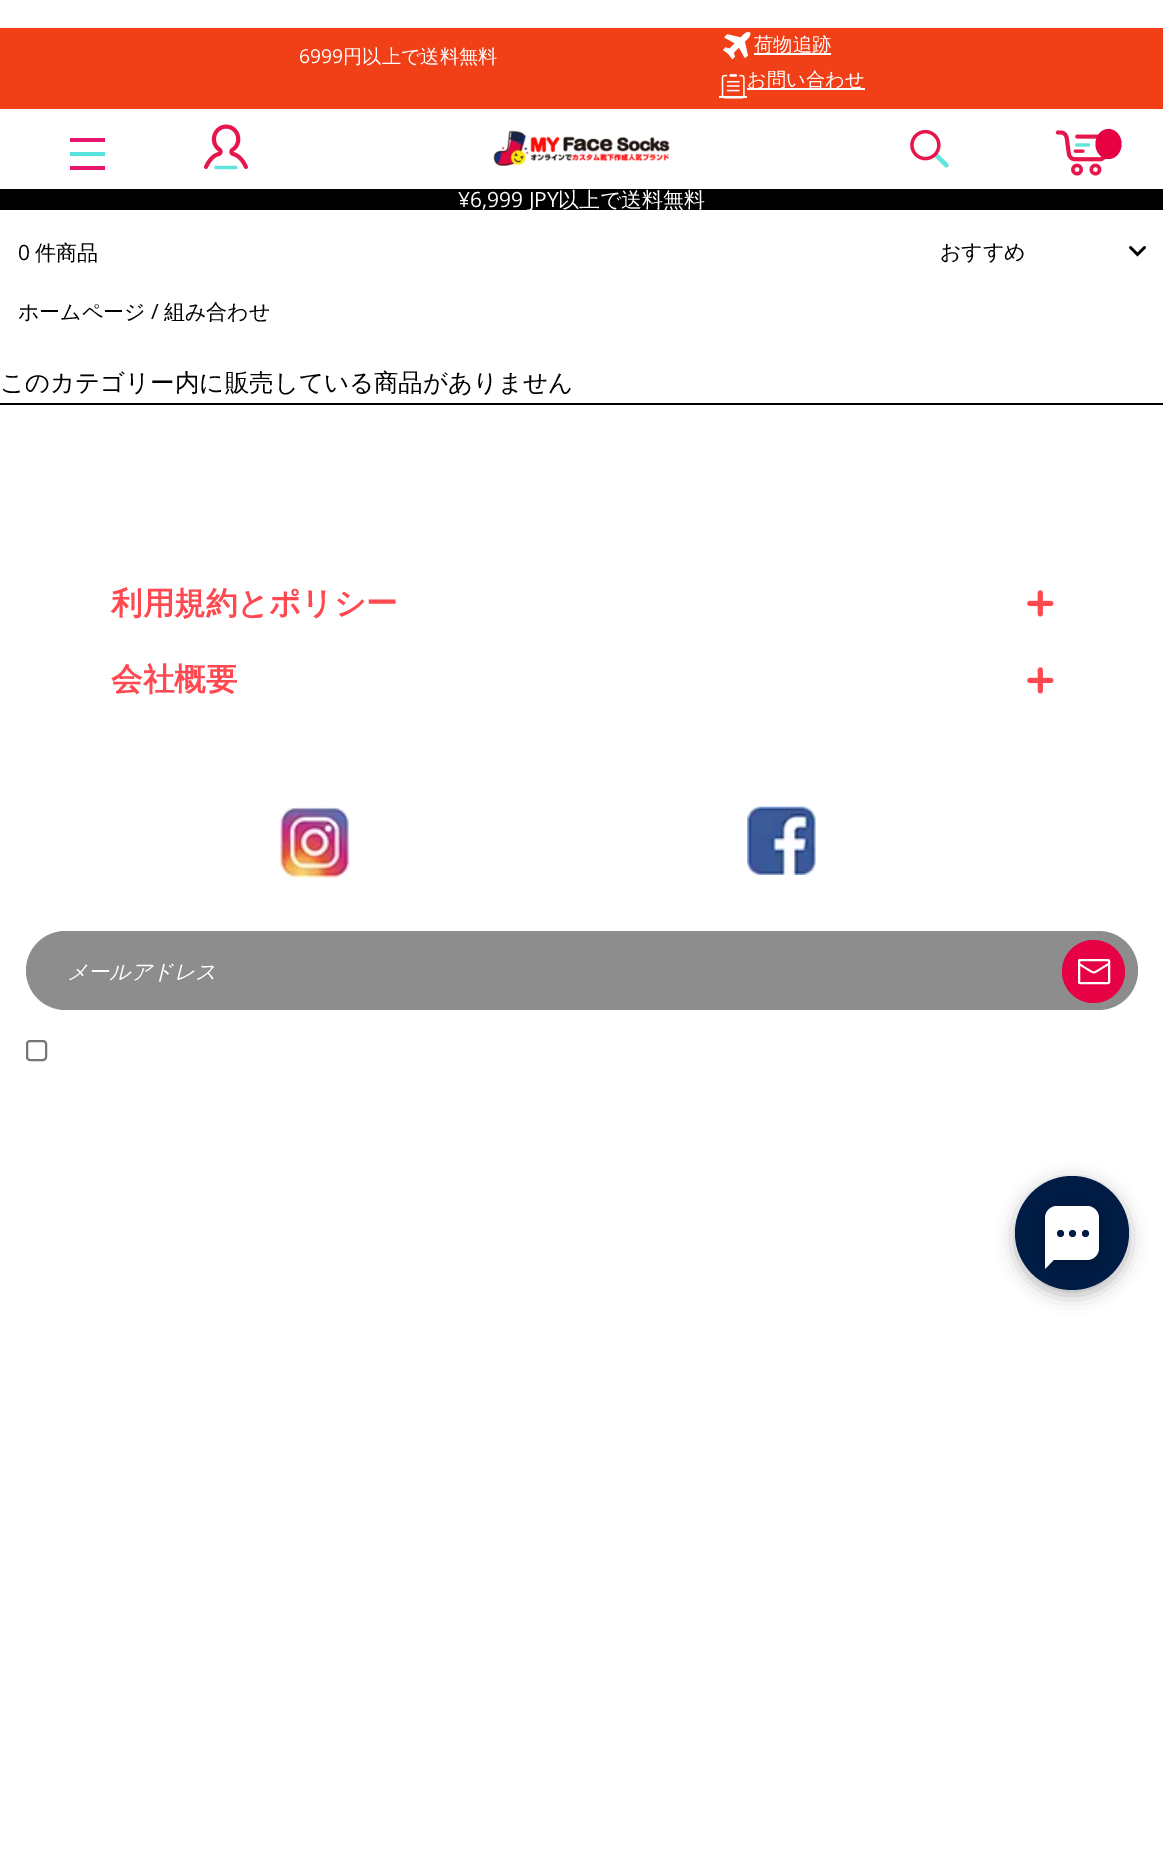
%!PS
<< /PageSize [1163 1874] /PageUsesTransparency true >> setpagedevice
/alpha { dup .setfillconstantalpha .setstrokeconstantalpha } def
/roundrect { 5 dict begin { /r /h /w /y /x } { exch def } forall
  x r add y moveto x w add y 2 copy h add r arct x w add y h add x 1 index r arct
  x y h add x y r arct x y 2 copy exch w add exch r arct closepath end } def
/shadow { 12 dict begin { /a /b /q /h /w /y /x } { exch def } forall gsave /was 0 def
  9 -2 -9 { dup b mul 4 div /e exch def 1 sub .425 mul 2.718 exch exp 1 add a .99 .min exch div /now exch def
    1 1 now sub 1 was sub div sub alpha /was now def
    w h .min e 2 mul add 0 gt { x e sub y e sub w e 2 mul add h e 2 mul add
      q e add b .6 mul add w h .min 2 div e add .min 0 .max roundrect fill } if } for grestore end } def
/picture { 5 dict begin { /h /w /y /x /name } { exch def } forall
  gsave x y translate w h scale
  w h 8 [w 0 0 h 0 0] name (r) file false 3 colorimage grestore end } def
0 .pushpdf14devicefilter
0 1874 translate 1 -1 scale
4 setmiterlimit
1 setgray
0 0 1163 1874 rectfill
0.945 0.247 0.094 setrgbcolor
0 28 1163 81 rectfill
/OpenSans-Regular [19.25 0 0 -19.25 0 0] selectfont
1 setgray
299 63 moveto (6999) show
/WenQuanYiZenHei-Medium [19.25 0 0 -19.25 0 0] selectfont
343 63 moveto (円以上で送料無料) show
(img1.rgb) 723 31 28 29 picture
754 53 77 2 rectfill
754 51 moveto (荷物追跡) show
719 96 28 2 rectfill
(img2.rgb) 721 74 24 25 picture
747 88 118 2 rectfill
747 86 moveto (お問い合わせ) show
0.902 0.086 0.424 setrgbcolor
70 138 35 4 rectfill
70 166 35 4 rectfill
0.341 0.886 0.859 setrgbcolor
70 152 35 4 rectfill
(img3.rgb) 203 124 45 46 picture
(img4.rgb) 493 130 177 36 picture
(img5.rgb) 910 129 39 39 picture
(img6.rgb) 1055 130 51 46 picture
0.902 0 0.267 setrgbcolor
newpath 1108.5 129 moveto 1115.5 129 1121.5 135.5 1121.5 144 curveto 1121.5 152.5 1115.5 159 1108.5 159 curveto 1101.5 159 1095.5 152.5 1095.5 144 curveto 1095.5 135.5 1101.5 129 1108.5 129 curveto closepath fill
0 setgray
0 189 1163 21 rectfill
/OpenSans-Regular [21 0 0 -21 0 0] selectfont
1 setgray
458 207 moveto (¥6,999 JPY) show
/WenQuanYiZenHei-Medium [21 0 0 -21 0 0] selectfont
558 207 moveto (以上で送料無料) show
/OpenSans-Regular [21 0 0 -21 0 0] selectfont
0 setgray
18 260 moveto (0) show
/WenQuanYiZenHei-Medium [21 0 0 -21 0 0] selectfont
35 260 moveto (件商品) show
940 259 moveto (おすすめ) show
2.6 setlinewidth
1 setlinecap
newpath 1130.5 247.5 moveto 1137.5 254.5 lineto 1144.5 247.5 lineto stroke
18 319 moveto (ホームページ) show
/OpenSans-Regular [21 0 0 -21 0 0] selectfont
151 319 moveto (/) show
/WenQuanYiZenHei-Medium [21 0 0 -21 0 0] selectfont
164 319 moveto (組み合わせ) show
/WenQuanYiZenHei-Medium [24.5 0 0 -24.5 0 0] selectfont
0 391 moveto (このカテゴリー内に販売している商品がありません) show
0 403 1163 2 rectfill
/WenQuanYiZenHei-Bold [31.5 0 0 -31.5 0 0] selectfont
0.996 0.286 0.314 setrgbcolor
111 614 moveto (利用規約とポリシー) show
(img7.rgb) 1027 590 27 27 picture
111 690 moveto (会社概要) show
(img7.rgb) 1027 667 27 27 picture
(img8.rgb) 280 807 70 72 picture
(img9.rgb) 747 806 69 69 picture
0.553 setgray
26 931 1112 79 39.5 roundrect fill
/WenQuanYiZenHei-MediumItalic [21 0 0 -21 0 0] selectfont
1 setgray
67 979 moveto (メールアドレス) show
0.902 0.004 0.267 setrgbcolor
newpath 1093.5 971.5 31.5 0 360 arc closepath fill
1 setgray
2 setlinewidth
0 setlinecap
1079 960 30 23 1 roundrect stroke
1.8 setlinewidth
newpath 1079 964 moveto 1092 972 lineto 1093 972.5 1094.5 972.5 1095.5 972 curveto 1108.5 964 lineto stroke
0.463 setgray
2 setlinewidth
27 1041 19 19 3 roundrect stroke
0 setgray
1015 1181 114 114 57 9 0.3 shadow
0 0.106 0.267 setrgbcolor
newpath 1072 1233 57 0 360 arc closepath fill
0 setgray
1045 1209 54 55 12 4.5 0.2 shadow
1 setgray
newpath 1057 1206 moveto 1087 1206 lineto 1093.5 1206 1099 1211.5 1099 1218 curveto 1099 1248 lineto 1099 1254.5 1093.5 1260 1087 1260 curveto 1045 1260 lineto 1045 1218 lineto 1045 1211.5 1050.5 1206 1057 1206 curveto closepath fill
0 0.106 0.267 setrgbcolor
newpath 1060.5 1233.5 3.5 0 360 arc closepath fill
newpath 1072.5 1233.5 3.5 0 360 arc closepath fill
newpath 1085.5 1233.5 3.5 0 360 arc closepath fill
1 setgray
newpath 1045 1269 moveto 1045 1251 lineto 1062 1251 lineto closepath fill
.poppdf14devicefilter showpage
